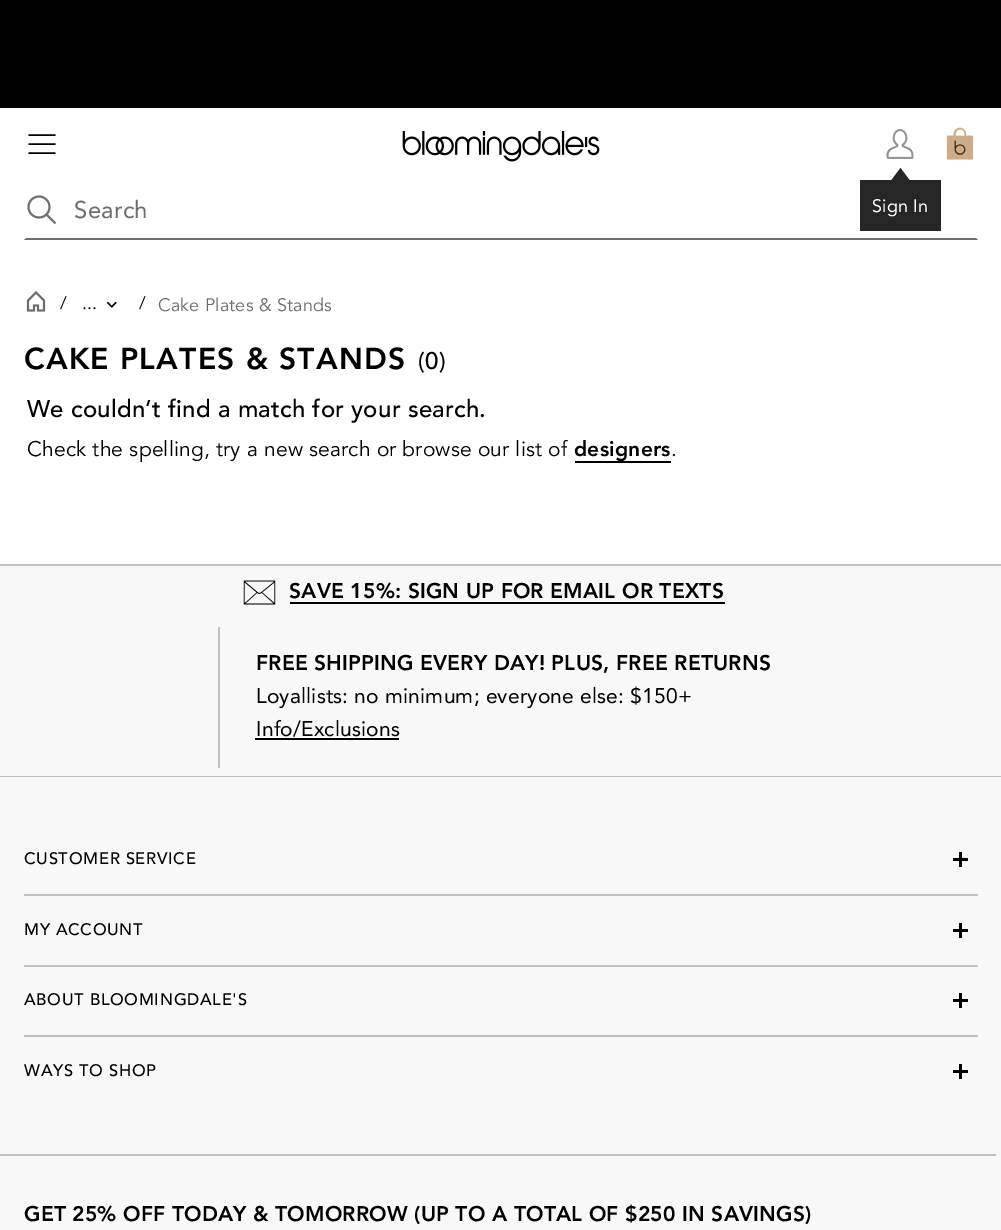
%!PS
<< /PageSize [1001 1230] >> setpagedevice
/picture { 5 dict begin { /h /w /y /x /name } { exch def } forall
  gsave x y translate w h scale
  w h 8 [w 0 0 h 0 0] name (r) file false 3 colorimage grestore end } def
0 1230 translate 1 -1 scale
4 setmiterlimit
1 setgray
0 0 1001 1230 rectfill
0 setgray
0 0 1001 108 rectfill
(img1.rgb) 27 195 30 30 picture
0.431 setgray
newpath 978 240 moveto 24 240 lineto 26 238 lineto 976 238 lineto closepath fill
/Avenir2-Regular [24 0 0 -24 0 0] selectfont
74 218 moveto 0.25 0 (Search) ashow
0 setgray
1.5 setlinewidth
newpath 28.5 135 moveto 55.5 135 lineto 28.5 144 moveto 55.5 144 lineto 28.5 153 moveto 55.5 153 lineto stroke
(img2.rgb) 402 131 198 31 picture
(img3.rgb) 946 127 28 33 picture
(img4.rgb) 886 129 28 30 picture
0.149 setgray
860 180 81 51 rectfill
newpath 909.5 180 moveto 891.5 180 lineto 900.5 168 lineto closepath fill
/Avenir2-Regular [18 0 0 -18 0 0] selectfont
1 setgray
872 212 moveto 0.2 0 (Sign In) ashow
(img5.rgb) 26 291 20 21 picture
/Avenir-Regular [18 0 0 -18 0 0] selectfont
0 setgray
60 309 moveto 0.2 0 (/) ashow
(img6.rgb) 106 301 11 7 picture
82 309 moveto 0.2 0 (...) ashow
139 309 moveto 0.2 0 (/) ashow
0.431 setgray
158 311 moveto 0.2 0 (Cake Plates & Stands) ashow
/Avenir-Black [30 0 0 -30 0 0] selectfont
0 setgray
24 369 moveto 1.2 0 (CAKE PLATES & STANDS) ashow
/Avenir-Medium [24 0 0 -24 0 0] selectfont
418 369 moveto 0.25 0 (\(0\)) ashow
27 417 moveto 0.25 0 (We couldn’t find a match for your search.) ashow
/Avenir-Regular [21 0 0 -21 0 0] selectfont
27 456 moveto 0.2 0 (Check the spelling, try a new search or browse our list of) ashow
575 461 96 2 rectfill
/Avenir-Black [21 0 0 -21 0 0] selectfont
574 456 moveto 0.2 0 (designers) ashow
/Avenir-Regular [21 0 0 -21 0 0] selectfont
671 456 moveto 0.2 0 (.) ashow
0.973 setgray
0 566 1001 210 rectfill
0.753 setgray
0 564 1001 2 rectfill
0 776 1001 1 rectfill
(img7.rgb) 243 580 33 25 picture
/Avenir-Black [21 0 0 -21 0 0] selectfont
0 setgray
289 598 moveto 0.2 0 (SAVE 15%: SIGN UP FOR EMAIL OR TEXTS) ashow
290 602 435 2 rectfill
0.753 setgray
218 627 2 141 rectfill
0 setgray
256 670 moveto 0.2 0 (FREE SHIPPING EVERY DAY! PLUS, FREE RETURNS) ashow
/Avenir2-Regular [21 0 0 -21 0 0] selectfont
256 703 moveto 0.2 0 (Loyallists: no minimum; everyone else: $150+) ashow
256 736 moveto 0.2 0 (Info/Exclusions) ashow
255 738 144 2 rectfill
0.973 setgray
0 777 1001 453 rectfill
0.753 setgray
24 894 954 2 rectfill
/Avenir-Medium [16.5 0 0 -16.5 0 0] selectfont
0 setgray
24 864 moveto 0.7 0 (CUSTOMER SERVICE) ashow
953 858 15 3 rectfill
959 852 3 15 rectfill
0.753 setgray
24 965 954 2 rectfill
0 setgray
24 935 moveto 0.7 0 (MY ACCOUNT) ashow
953 929 15 3 rectfill
959 923 3 15 rectfill
0.753 setgray
24 1035 954 2 rectfill
0 setgray
24 1005 moveto 0.7 0 (ABOUT BLOOMINGDALE'S) ashow
953 999 15 3 rectfill
959 993 3 15 rectfill
24 1076 moveto 0.7 0 (WAYS TO SHOP) ashow
953 1070 15 3 rectfill
959 1064 3 15 rectfill
0.753 setgray
0 1154 996 2 rectfill
/Avenir-Black [21 0 0 -21 0 0] selectfont
0 setgray
24 1221 moveto 0.2 0 (GET 25% OFF TODAY & TOMORROW \(UP TO A TOTAL OF $250 IN SAVINGS\)) ashow
showpage
